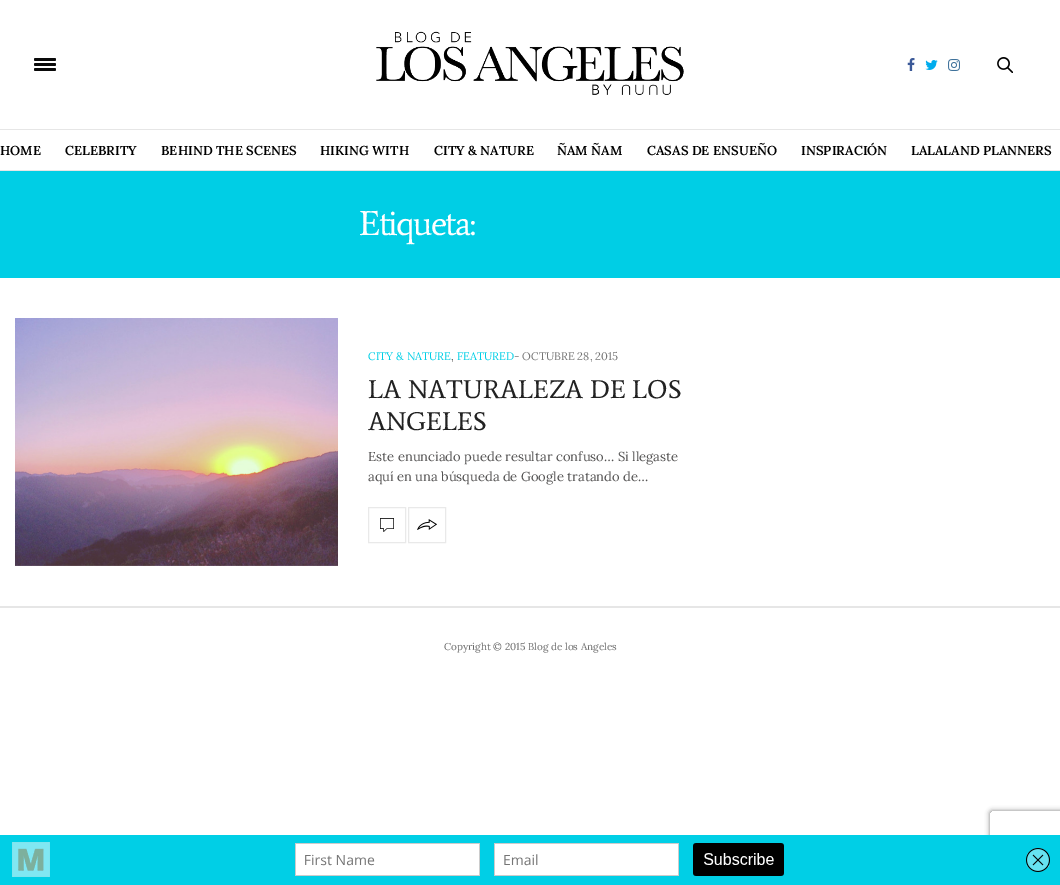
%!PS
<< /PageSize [1060 885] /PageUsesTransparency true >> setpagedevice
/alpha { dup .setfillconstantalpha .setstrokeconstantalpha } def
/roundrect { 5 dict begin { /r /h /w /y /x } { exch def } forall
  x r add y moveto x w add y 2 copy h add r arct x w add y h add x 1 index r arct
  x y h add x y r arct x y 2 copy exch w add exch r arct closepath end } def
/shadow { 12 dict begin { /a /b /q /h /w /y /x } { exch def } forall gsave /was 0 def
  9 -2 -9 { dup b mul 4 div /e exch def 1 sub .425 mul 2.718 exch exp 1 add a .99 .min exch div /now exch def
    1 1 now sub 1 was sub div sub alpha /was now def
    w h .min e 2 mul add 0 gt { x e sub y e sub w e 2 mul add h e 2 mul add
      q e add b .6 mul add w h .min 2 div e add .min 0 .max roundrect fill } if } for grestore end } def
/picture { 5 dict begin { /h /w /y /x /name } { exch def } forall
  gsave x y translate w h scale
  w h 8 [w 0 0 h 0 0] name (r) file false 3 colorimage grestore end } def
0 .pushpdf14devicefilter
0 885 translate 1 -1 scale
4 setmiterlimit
1 setgray
0 0 1060 885 rectfill
0.902 setgray
0 129 1060 1 rectfill
0.039 setgray
34 58 22 3 1.5 roundrect fill
34 63 22 3 1.5 roundrect fill
34 68 22 3 1.5 roundrect fill
(img1.rgb) 376 31 308 64 picture
(img2.rgb) 907 58 8 13 picture
(img3.rgb) 925 60 13 10 picture
(img4.rgb) 948 59 12 12 picture
(img5.rgb) 997 57 16 16 picture
0.902 setgray
0 170 1060 1 rectfill
/Lora-SemiBold [13 0 0 -13 0 0] selectfont
0 setgray
0 155 moveto (HOME) show
65 155 moveto (CELEBRITY) show
161 155 moveto (BEHIND THE SCENES) show
320 155 moveto (HIKING WITH) show
434 155 moveto (CITY & NATURE) show
557 155 moveto (ÑAM ÑAM) show
647 155 moveto (CASAS DE ENSUEÑO) show
801 155 moveto (INSPIRACIÓN) show
911 155 moveto (LALALAND PLANNERS) show
0 0.808 0.898 setrgbcolor
0 171 1060 107 rectfill
/Average-Regular [35 0 0 -35 0 0] selectfont
1 setgray
359 235 moveto -1.75 0 (Etiqueta:) ashow
(img6.rgb) 15 318 323 248 picture
/Lora-Regular [11 0 0 -11 0 0] selectfont
0 0.808 0.898 setrgbcolor
368 360 moveto (CITY & NATURE) show
0.329 0.325 0.325 setrgbcolor
451 360 moveto (,) show
0 0.808 0.898 setrgbcolor
457 360 moveto (FEATURED) show
0.463 setgray
514 360 moveto (- OCTUBRE 28, 2015) show
/Average-Regular [26 0 0 -26 0 0] selectfont
0.133 setgray
368 398 moveto (LA NATURALEZA DE LOS) show
368 430 moveto (ANGELES) show
/Lora-Regular [13 0 0 -13 0 0] selectfont
0.329 0.325 0.325 setrgbcolor
368 461 moveto (Este enunciado puede resultar confuso… Si llegaste) show
368 481 moveto (aquí en una búsqueda de Google tratando de…) show
0.914 setgray
368.5 507.5 37 35 rectstroke
(img7.rgb) 380 518 14 14 picture
408.5 507.5 37 35 rectstroke
(img8.rgb) 417 519 20 11 picture
0.902 setgray
0 606 1060 2 rectfill
/Lora-Regular [10 0 0 -10 0 0] selectfont
0.416 setgray
444 650 moveto (Copyright © 2015 Blog de los Angeles) show
gsave
newpath 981 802 moveto 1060 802 lineto 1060 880 lineto 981 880 lineto closepath 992 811 moveto 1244 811 lineto 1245 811 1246 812 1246 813 curveto 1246 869 lineto 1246 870 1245 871 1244 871 curveto 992 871 lineto 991 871 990 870 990 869 curveto 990 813 lineto 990 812 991 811 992 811 curveto closepath eoclip newpath
0.502 setgray
990 811 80 60 2 2.5 1 shadow
grestore
(img9.rgb) 0 835 1060 50 picture
.poppdf14devicefilter showpage
